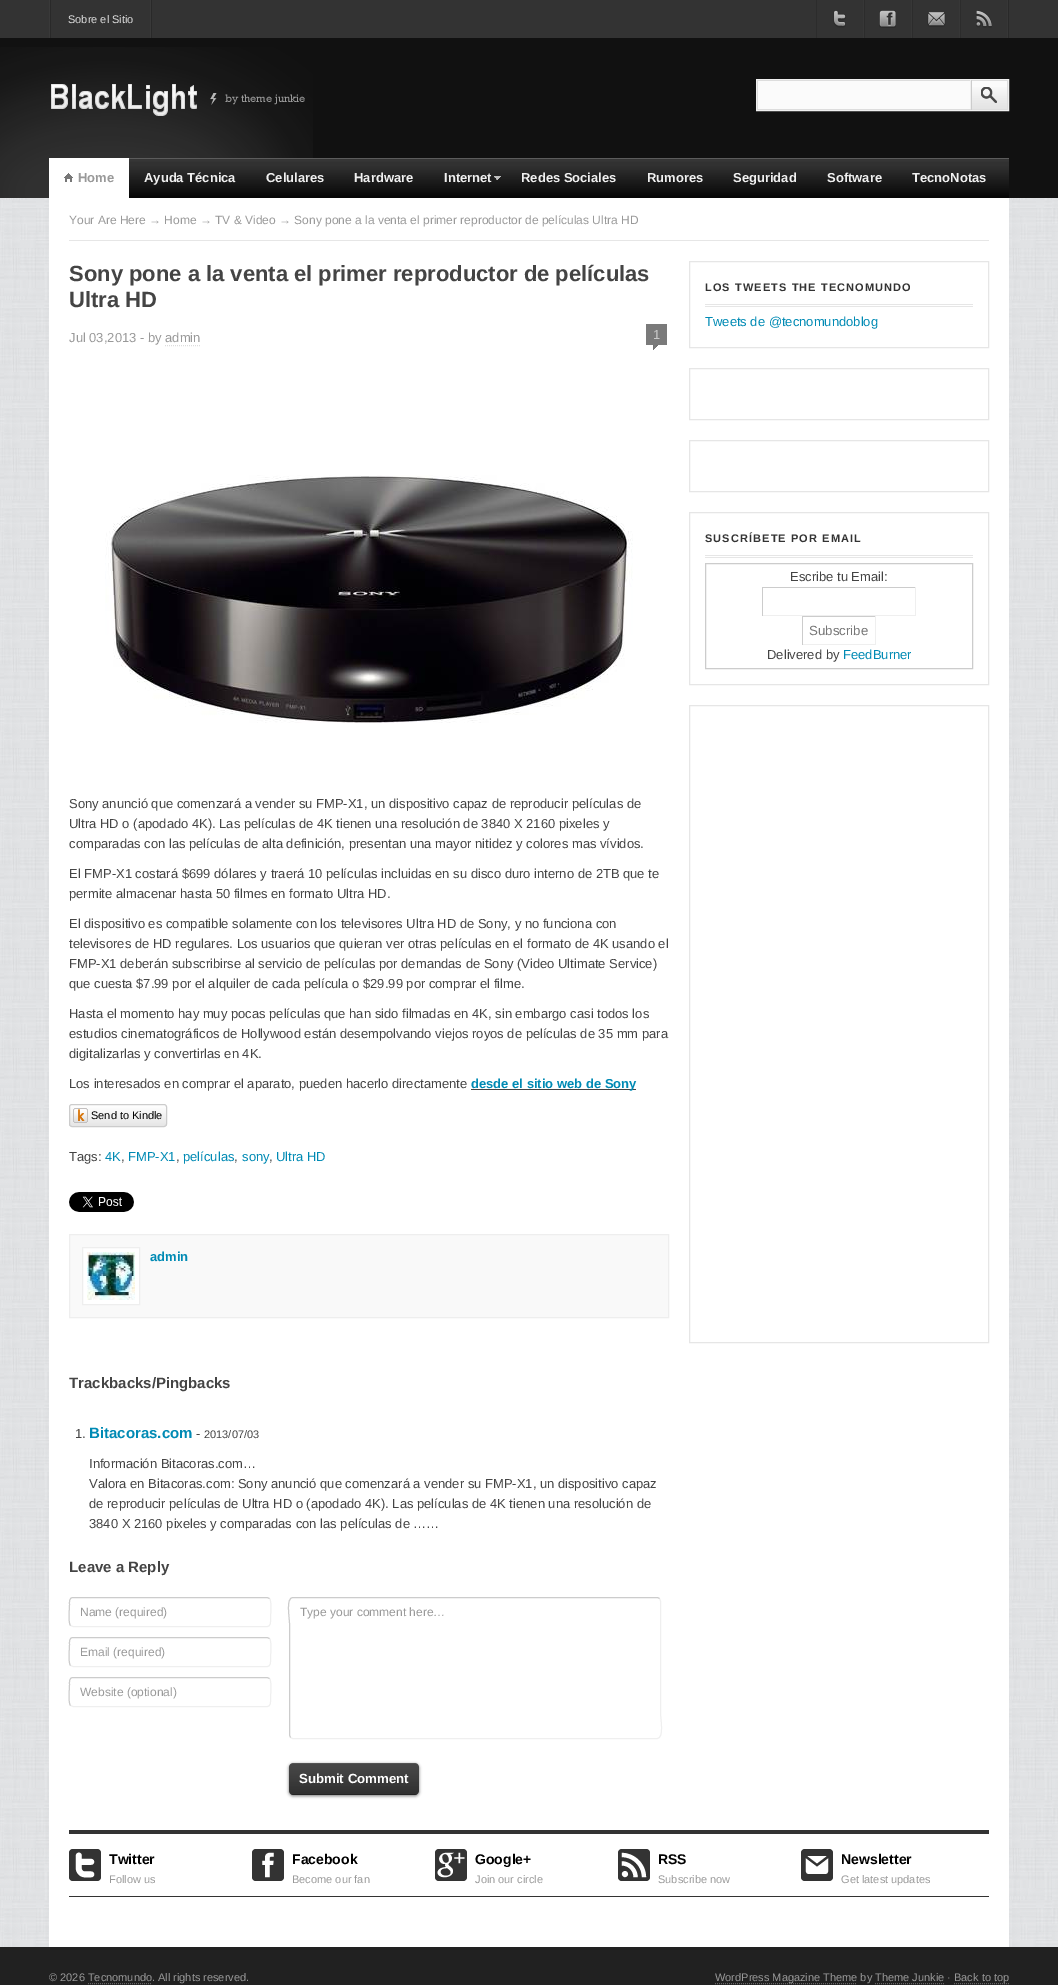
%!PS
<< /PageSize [1058 1985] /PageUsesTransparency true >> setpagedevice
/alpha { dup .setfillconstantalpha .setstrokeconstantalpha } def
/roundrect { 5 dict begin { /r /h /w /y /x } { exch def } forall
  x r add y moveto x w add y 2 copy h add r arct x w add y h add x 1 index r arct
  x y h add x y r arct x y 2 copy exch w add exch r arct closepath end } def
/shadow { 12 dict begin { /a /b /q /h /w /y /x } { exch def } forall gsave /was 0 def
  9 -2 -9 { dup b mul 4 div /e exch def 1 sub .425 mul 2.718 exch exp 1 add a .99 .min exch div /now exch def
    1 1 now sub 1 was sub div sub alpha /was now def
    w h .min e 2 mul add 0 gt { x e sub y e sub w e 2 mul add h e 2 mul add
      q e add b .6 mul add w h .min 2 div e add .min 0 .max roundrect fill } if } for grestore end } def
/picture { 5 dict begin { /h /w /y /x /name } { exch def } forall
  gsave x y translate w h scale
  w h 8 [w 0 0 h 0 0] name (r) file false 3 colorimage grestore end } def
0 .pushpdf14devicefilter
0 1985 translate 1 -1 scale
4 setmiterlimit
1 setgray
0 0 1058 1985 rectfill
(img1.rgb) 0 198 1058 1749 picture
0.2 setgray
0 0 1058 38 rectfill
0.161 setgray
1008 0 1 38 rectfill
0.224 setgray
49 0 1 38 rectfill
(img2.rgb) 833 10 13 18 picture
0.216 setgray
863 0 1 38 rectfill
0.173 setgray
816 0 1 38 rectfill
(img3.rgb) 879 10 17 18 picture
0.216 setgray
911 0 1 38 rectfill
0.173 setgray
864 0 1 38 rectfill
(img4.rgb) 927 12 19 15 picture
0.216 setgray
959 0 1 38 rectfill
0.173 setgray
912 0 1 38 rectfill
(img5.rgb) 976 10 16 18 picture
0.216 setgray
1007 0 1 38 rectfill
0.173 setgray
960 0 1 38 rectfill
0.161 setgray
151 0 1 38 rectfill
0.224 setgray
150 0 1 38 rectfill
0.161 setgray
50 0 1 38 rectfill
/LiberationSans-Regular [11 0 0 -11 0 0] selectfont
0.867 setgray
68 23 moveto (Sobre el Sitio) show
0.067 setgray
0 38 1058 160 rectfill
(img6.rgb) 0 47 313 151 picture
(img7.rgb) 51 84 254 32 picture
0.941 setgray
756.5 79.5 252 31 rectstroke
0.984 setgray
758 81 212 28 rectfill
0.867 setgray
757 80 251 1 rectfill
0.937 setgray
970 80 1 30 rectfill
0.867 setgray
757 109 214 1 rectfill
757 80 1 30 rectfill
0.984 setgray
972 81 35 28 rectfill
(img8.rgb) 972 87 35 22 picture
0.867 setgray
1007 80 1 30 rectfill
971 109 37 1 rectfill
0.8 setgray
971 80 1 30 rectfill
(img9.rgb) 981 87 16 16 picture
(img10.rgb) 129 158 880 40 picture
1 setgray
49 158 80 40 rectfill
(img11.rgb) 64 173 9 9 picture
/LiberationSans-Bold [13 0 0 -13 0 0] selectfont
0.6 setgray
78 182 moveto (Home) show
0.941 setgray
144 182 moveto (Ayuda Técnica) show
266 182 moveto (Celulares) show
354 182 moveto (Hardware) show
444 182 moveto (Internet) show
(img12.rgb) 494 176 7 4 picture
(img13.rgb) 494 177 5 3 picture
521 182 moveto (Redes Sociales) show
647 182 moveto (Rumores) show
733 182 moveto (Seguridad) show
827 182 moveto (Software) show
912 182 moveto (TecnoNotas) show
1 setgray
49 198 960 1749 rectfill
0.902 setgray
69 240 920 1 rectfill
/LiberationSans-Regular [12 0 0 -12 0 0] selectfont
0.6 setgray
69 224 moveto (Your Are Here → Home → TV & Video → Sony pone a la venta el primer reproductor de películas Ultra HD) show
/LiberationSans-Bold [22 0 0 -22 0 0] selectfont
0.267 setgray
69 281 moveto (Sony pone a la venta el primer reproductor de películas) show
69 307 moveto (Ultra HD) show
/LiberationSans-Regular [13 0 0 -13 0 0] selectfont
0.6 setgray
69 342 moveto (Jul 03,2013 - by admin) show
(img14.rgb) 646 324 21 26 picture
0.792 setgray
653 339 moveto (1) show
0.867 setgray
[1 1] 0 setdash
newpath 165 345.5 moveto 201 345.5 lineto stroke
(img15.rgb) 105 475 528 248 picture
0.267 setgray
69 808 moveto (Sony anunció que comenzará a vender su FMP-X1, un dispositivo capaz de reproducir películas de) show
69 828 moveto (Ultra HD o \(apodado 4K\). Las películas de 4K tienen una resolución de 3840 X 2160 pixeles y) show
69 848 moveto (comparadas con las películas de alta definición, presentan una mayor nitidez y colores mas vívidos.) show
69 878 moveto (El FMP-X1 costará $699 dólares y traerá 10 películas incluidas en su disco duro interno de 2TB que te) show
69 898 moveto (permite almacenar hasta 50 filmes en formato Ultra HD.) show
69 928 moveto (El dispositivo es compatible solamente con los televisores Ultra HD de Sony, y no funciona con) show
69 948 moveto (televisores de HD regulares. Los usuarios que quieran ver otras películas en el formato de 4K usando el) show
69 968 moveto (FMP-X1 deberán subscribirse al servicio de películas por demandas de Sony \(Video Ultimate Service\)) show
69 988 moveto (que cuesta $7.99 por el alquiler de cada película o $29.99 por comprar el filme.) show
69 1018 moveto (Hasta el momento hay muy pocas películas que han sido filmadas en 4K, sin embargo casi todos los) show
69 1038 moveto (estudios cinematográficos de Hollywood están desempolvando viejos royos de películas de 35 mm para) show
69 1058 moveto (digitalizarlas y convertirlas en 4K.) show
69 1088 moveto (Los interesados en comprar el aparato, pueden hacerlo directamente) show
471 1089 165 1 rectfill
/LiberationSans-Bold [13 0 0 -13 0 0] selectfont
0 0.541 0.706 setrgbcolor
471 1088 moveto (desde el sitio web de Sony) show
gsave
69 1104 98 23 3 roundrect clip newpath
gsave newpath 69 1105 moveto 167 1105 lineto 167 1126 lineto 69 1126 lineto closepath clip newpath
<< /ShadingType 2 /ColorSpace /DeviceRGB /Coords [118 1105 118 1126] /Extend [true true] /Function << /FunctionType 2 /Domain [0 1] /C0 [1 1 1] /C1 [0.902 0.902 0.902] /N 1 >> >> shfill grestore
grestore
0.8 setgray
[] 0 setdash
69.5 1104.5 97 22 2.5 roundrect stroke
(img16.rgb) 73 1108 15 15 picture
/LiberationSans-Regular [11 0 0 -11 0 0] selectfont
0 setgray
91 1119 moveto (Send to Kindle) show
/LiberationSans-Regular [13 0 0 -13 0 0] selectfont
0.267 setgray
69 1161 moveto (Tags:) show
0 0.541 0.706 setrgbcolor
105 1161 moveto (4K) show
0.267 setgray
121 1161 moveto (,) show
0 0.541 0.706 setrgbcolor
128 1161 moveto (FMP-X1) show
0.267 setgray
176 1161 moveto (,) show
0 0.541 0.706 setrgbcolor
183 1161 moveto (películas) show
0.267 setgray
234 1161 moveto (,) show
0 0.541 0.706 setrgbcolor
242 1161 moveto (sony) show
0.267 setgray
269 1161 moveto (,) show
0 0.541 0.706 setrgbcolor
276 1161 moveto (Ultra HD) show
(img17.rgb) 69 1192 65 20 picture
0.976 setgray
newpath 69.5 1234.5 moveto 668.5 1234.5 lineto 668.5 1317.5 lineto 69.5 1317.5 lineto closepath gsave fill grestore
0.933 setgray
stroke
1 setgray
newpath 82.5 1247.5 moveto 139.5 1247.5 lineto 139.5 1304.5 lineto 82.5 1304.5 lineto closepath gsave fill grestore
0.933 setgray
stroke
(img18.rgb) 87 1252 48 48 picture
/LiberationSans-Bold [13 0 0 -13 0 0] selectfont
0 0.541 0.706 setrgbcolor
150 1261 moveto (admin) show
/LiberationSans-Bold [15 0 0 -15 0 0] selectfont
0.267 setgray
69 1388 moveto (Trackbacks/Pingbacks) show
/LiberationSans-Regular [13 0 0 -13 0 0] selectfont
75 1438 moveto (1.) show
/LiberationSans-Bold [15 0 0 -15 0 0] selectfont
0 0.541 0.706 setrgbcolor
89 1438 moveto (Bitacoras.com) show
/LiberationSans-Regular [13 0 0 -13 0 0] selectfont
0.267 setgray
196 1438 moveto (-) show
/LiberationSans-Regular [11 0 0 -11 0 0] selectfont
204 1438 moveto (2013/07/03) show
/LiberationSans-Regular [13 0 0 -13 0 0] selectfont
89 1468 moveto (Información Bitacoras.com…) show
89 1488 moveto (Valora en Bitacoras.com: Sony anunció que comenzará a vender su FMP-X1, un dispositivo capaz) show
89 1508 moveto (de reproducir películas de Ultra HD o \(apodado 4K\). Las películas de 4K tienen una resolución de) show
89 1528 moveto (3840 X 2160 pixeles y comparadas con las películas de ……) show
/LiberationSans-Bold [15 0 0 -15 0 0] selectfont
69 1572 moveto (Leave a Reply) show
0.937 setgray
newpath 269.5 1598.5 moveto 272 1601 270.5 1615.5 270.5 1619.5 curveto 270.5 1622 271 1626.5 267 1626.5 curveto 73 1626.5 lineto 70.5 1625.5 lineto stroke
0.8 setgray
newpath 70.5 1625.5 moveto 68 1623 69.5 1608.5 69.5 1604.5 curveto 69.5 1602 69 1597.5 73 1597.5 curveto 267 1597.5 lineto 269.5 1598.5 lineto stroke
/LiberationSans-Regular [12 0 0 -12 0 0] selectfont
0.6 setgray
80 1616 moveto (Name \(required\)) show
0.937 setgray
newpath 269.5 1638.5 moveto 272 1641 270.5 1655.5 270.5 1659.5 curveto 270.5 1662 271 1666.5 267 1666.5 curveto 73 1666.5 lineto 70.5 1665.5 lineto stroke
0.8 setgray
newpath 70.5 1665.5 moveto 68 1663 69.5 1648.5 69.5 1644.5 curveto 69.5 1642 69 1637.5 73 1637.5 curveto 267 1637.5 lineto 269.5 1638.5 lineto stroke
0.6 setgray
80 1656 moveto (Email \(required\)) show
0.937 setgray
newpath 269.5 1678.5 moveto 272 1681 270.5 1695.5 270.5 1699.5 curveto 270.5 1702 271 1706.5 267 1706.5 curveto 73 1706.5 lineto 70.5 1705.5 lineto stroke
0.8 setgray
newpath 70.5 1705.5 moveto 68 1703 69.5 1688.5 69.5 1684.5 curveto 69.5 1682 69 1677.5 73 1677.5 curveto 267 1677.5 lineto 269.5 1678.5 lineto stroke
0.6 setgray
80 1696 moveto (Website \(optional\)) show
0.937 setgray
newpath 659.5 1598.5 moveto 660.5 1601 lineto 660.5 1712.5 lineto 660.5 1718.5 664.5 1738.5 657 1738.5 curveto 292.5 1738.5 lineto 290.5 1737.5 lineto stroke
0.8 setgray
newpath 290.5 1737.5 moveto 289.5 1735 lineto 289.5 1623.5 lineto 289.5 1617.5 285.5 1597.5 293 1597.5 curveto 657.5 1597.5 lineto 659.5 1598.5 lineto stroke
0.6 setgray
300 1616 moveto (Type your comment here…) show
0 setgray
289 1764 130 32 4 1.5 0.5 shadow
0.204 setgray
289 1763 130 32 4 roundrect fill
(img19.rgb) 289 1763 130 32 picture
0.25 alpha
0 setgray
291 1794 126 1 rectfill
/LiberationSans-Bold [13.25 0 0 -13.25 0 0] selectfont
1 alpha
1 setgray
299 1783 moveto (Submit Comment) show
0.902 setgray
689.5 261.5 299 86 rectstroke
705 304 268 1 rectfill
705 306 268 1 rectfill
/LiberationSans-Bold [11 0 0 -11 0 0] selectfont
0.2 setgray
705 291 moveto 1.1 0 (LOS TWEETS THE TECNOMUNDO) ashow
/LiberationSans-Regular [13 0 0 -13 0 0] selectfont
0 0.541 0.706 setrgbcolor
705 326 moveto (Tweets de @tecnomundoblog) show
0.902 setgray
689.5 368.5 299 51 rectstroke
689.5 440.5 299 51 rectstroke
689.5 512.5 299 172 rectstroke
705 555 268 1 rectfill
705 557 268 1 rectfill
/LiberationSans-Bold [11 0 0 -11 0 0] selectfont
0.2 setgray
705 542 moveto 1.1 0 (SUSCRÍBETE POR EMAIL) ashow
0.8 setgray
705.5 563.5 267 105 rectstroke
/LiberationSans-Regular [13 0 0 -13 0 0] selectfont
0.267 setgray
790 581 moveto (Escribe tu Email:) show
0.8 setgray
762 587 154 1 rectfill
0.937 setgray
915 587 1 29 rectfill
762 615 154 1 rectfill
0.8 setgray
762 587 1 29 rectfill
802 616 74 1 rectfill
0.937 setgray
875 616 1 29 rectfill
802 644 74 1 rectfill
0.8 setgray
802 616 1 29 rectfill
/LiberationSans-Regular [13.25 0 0 -13.25 0 0] selectfont
0.467 setgray
809 635 moveto (Subscribe) show
/LiberationSans-Regular [13 0 0 -13 0 0] selectfont
0.267 setgray
767 659 moveto (Delivered by) show
0 0.541 0.706 setrgbcolor
843 659 moveto (FeedBurner) show
0.902 setgray
689.5 705.5 299 637 rectstroke
0.2 setgray
69 1830 920 4 rectfill
(img20.rgb) 69 1849 32 32 picture
/LiberationSans-Bold [14 0 0 -14 0 0] selectfont
0 setgray
109 1864 moveto (Twitter) show
/LiberationSans-Regular [11 0 0 -11 0 0] selectfont
0.6 setgray
109 1883 moveto (Follow us) show
(img21.rgb) 252 1849 32 32 picture
/LiberationSans-Bold [14 0 0 -14 0 0] selectfont
0 setgray
292 1864 moveto (Facebook) show
/LiberationSans-Regular [11 0 0 -11 0 0] selectfont
0.6 setgray
292 1883 moveto (Become our fan) show
(img22.rgb) 435 1849 32 32 picture
/LiberationSans-Bold [14 0 0 -14 0 0] selectfont
0 setgray
475 1864 moveto (Google+) show
/LiberationSans-Regular [11 0 0 -11 0 0] selectfont
0.6 setgray
475 1883 moveto (Join our circle) show
(img23.rgb) 618 1849 32 32 picture
/LiberationSans-Bold [14 0 0 -14 0 0] selectfont
0 setgray
658 1864 moveto (RSS) show
/LiberationSans-Regular [11 0 0 -11 0 0] selectfont
0.6 setgray
658 1883 moveto (Subscribe now) show
(img24.rgb) 801 1849 32 32 picture
/LiberationSans-Bold [14 0 0 -14 0 0] selectfont
0 setgray
841 1864 moveto (Newsletter) show
/LiberationSans-Regular [11 0 0 -11 0 0] selectfont
0.6 setgray
841 1883 moveto (Get latest updates) show
0.2 setgray
69 1896 920 1 rectfill
0.129 setgray
0 1947 1058 38 rectfill
0.6 setgray
49 1981 moveto (© 2026 Tecnomundo. All rights reserved.) show
0.4 setgray
[1 1] 0 setdash
newpath 88 1983.5 moveto 152 1983.5 lineto stroke
newpath 715 1983.5 moveto 857 1983.5 lineto stroke
0.6 setgray
715 1981 moveto (WordPress Magazine Theme by Theme Junkie ·) show
0.4 setgray
newpath 954 1983.5 moveto 1009 1983.5 lineto stroke
0.6 setgray
954 1981 moveto (Back to top) show
0.4 setgray
newpath 875 1983.5 moveto 944 1983.5 lineto stroke
.poppdf14devicefilter showpage
